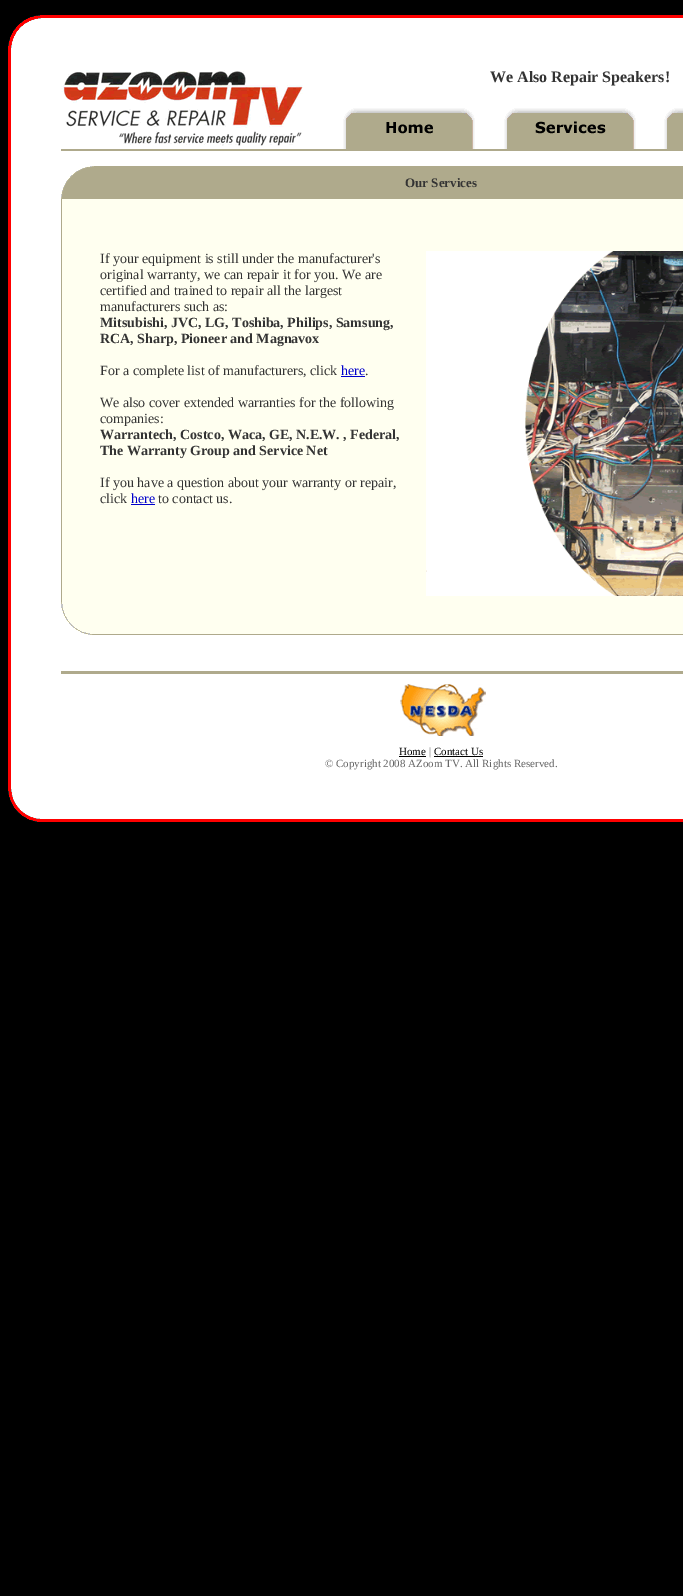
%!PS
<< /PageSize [683 1596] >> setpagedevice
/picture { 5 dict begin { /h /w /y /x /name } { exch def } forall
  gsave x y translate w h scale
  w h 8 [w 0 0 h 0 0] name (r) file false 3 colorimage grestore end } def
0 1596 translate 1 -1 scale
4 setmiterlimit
0 setgray
0 0 683 1596 rectfill
(img1.rgb) 8 15 33 33 picture
1 setgray
41 18 642 30 rectfill
1 0 0 setrgbcolor
41 15 642 3 rectfill
1 setgray
11 48 672 741 rectfill
1 0 0 setrgbcolor
8 48 3 741 rectfill
(img2.rgb) 61 70 242 76 picture
/LiberationSerif-Bold [16 0 0 -16 0 0] selectfont
0.2 setgray
490 82 moveto (We Also Repair Speakers!) show
(img3.rgb) 343 108 132 41 picture
(img4.rgb) 504 108 132 41 picture
(img5.rgb) 664 108 19 41 picture
0.686 0.667 0.549 setrgbcolor
61 149 622 2 rectfill
(img6.rgb) 61 166 33 33 picture
94 166 589 33 rectfill
/LiberationSerif-Bold [13 0 0 -13 0 0] selectfont
0.2 setgray
405 187 moveto (Our Services) show
1 1 0.941 setrgbcolor
62 199 621 403 rectfill
0.686 0.667 0.549 setrgbcolor
61 199 1 403 rectfill
/LiberationSerif-Regular [14 0 0 -14 0 0] selectfont
0.2 setgray
100 263 moveto (If your equipment is still under the manufacturer's) show
100 279 moveto (original warranty, we can repair it for you. We are) show
100 295 moveto (certified and trained to repair all the largest) show
100 311 moveto (manufacturers such as:) show
/LiberationSerif-Bold [14 0 0 -14 0 0] selectfont
100 327 moveto (Mitsubishi, JVC, LG, Toshiba, Philips, Samsung,) show
100 343 moveto (RCA, Sharp, Pioneer and Magnavox) show
/LiberationSerif-Regular [14 0 0 -14 0 0] selectfont
100 375 moveto (For a complete list of manufacturers, click) show
0 0 0.8 setrgbcolor
341 375 moveto (here) show
341 376 24 1 rectfill
0.2 setgray
365 375 moveto (.) show
100 407 moveto (We also cover extended warranties for the following) show
100 423 moveto (companies:) show
/LiberationSerif-Bold [14 0 0 -14 0 0] selectfont
100 439 moveto (Warrantech, Costco, Waca, GE, N.E.W. , Federal,) show
100 455 moveto (The Warranty Group and Service Net) show
/LiberationSerif-Regular [14 0 0 -14 0 0] selectfont
100 487 moveto (If you have a question about your warranty or repair,) show
100 503 moveto (click) show
0 0 0.8 setrgbcolor
131 503 moveto (here) show
131 504 24 1 rectfill
0.2 setgray
158 503 moveto (to contact us.) show
(img7.rgb) 426 251 257 345 picture
(img8.rgb) 61 602 33 33 picture
1 1 0.941 setrgbcolor
94 602 589 32 rectfill
0.686 0.667 0.549 setrgbcolor
94 634 589 1 rectfill
61 671 622 3 rectfill
(img9.rgb) 400 684 86 52 picture
/LiberationSerif-Regular [11 0 0 -11 0 0] selectfont
0 setgray
399 755 moveto (Home) show
399 756 27 1 rectfill
0.4 setgray
429 755 moveto (|) show
0 setgray
434 755 moveto (Contact Us) show
434 756 49 1 rectfill
0.4 setgray
325 767 moveto (© Copyright 2008 AZoom TV. All Rights Reserved.) show
(img10.rgb) 8 789 33 33 picture
1 setgray
41 789 642 30 rectfill
1 0 0 setrgbcolor
41 819 642 3 rectfill
showpage
